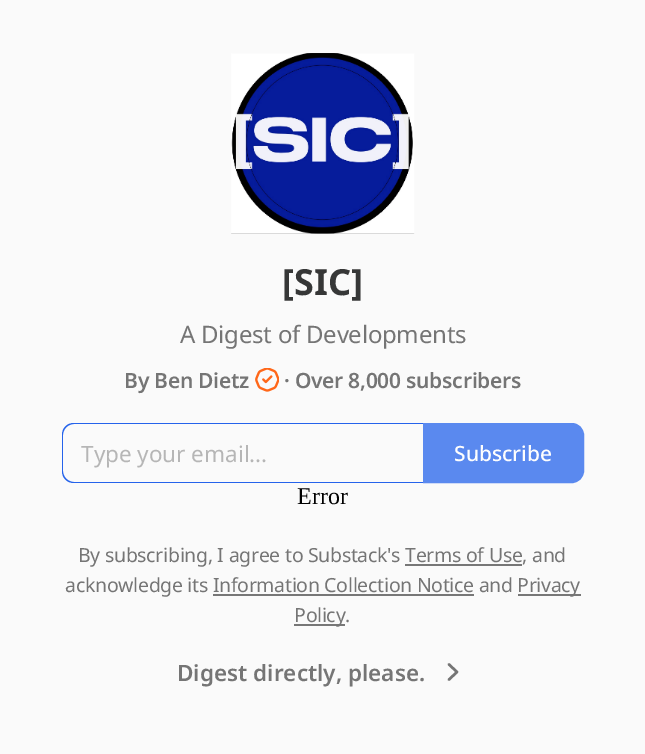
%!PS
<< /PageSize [645 754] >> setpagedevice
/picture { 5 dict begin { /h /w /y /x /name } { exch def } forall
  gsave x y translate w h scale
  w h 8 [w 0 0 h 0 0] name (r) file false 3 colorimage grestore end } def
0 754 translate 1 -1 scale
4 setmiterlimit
0.98 setgray
0 0 645 754 rectfill
(img1.rgb) 231 53 184 181 picture
/NotoSans-Bold [36 0 0 -36 0 0] selectfont
0.212 0.216 0.216 setrgbcolor
282 295 moveto ([SIC]) show
/NotoSans-Regular [24 0 0 -24 0 0] selectfont
0.459 setgray
180 343 moveto -0.25 0 (A Digest of Developments) ashow
/NotoSans-SemiBold [21 0 0 -21 0 0] selectfont
124 388 moveto -0.25 0 (By Ben Dietz) ashow
(img2.rgb) 255 368 24 24 picture
284 388 moveto -0.25 0 (· Over 8,000 subscribers) ashow
0.145 0.388 0.922 setrgbcolor
newpath 74 423 moveto 423 423 lineto 423 483 lineto 74 483 lineto 67 483 62 478 62 471 curveto 62 435 lineto 62 428 67 423 74 423 curveto closepath 74 424 moveto 423 424 lineto 423 482 lineto 74 482 lineto 68 482 63 477 63 471 curveto 63 435 lineto 63 429 68 424 74 424 curveto closepath eofill
/NotoSans-Regular [22.5 0 0 -22.5 0 0] selectfont
0.714 setgray
81 462 moveto (Type your email...) show
0.353 0.537 0.937 setrgbcolor
newpath 424 424 moveto 572 424 lineto 578 424 583 429 583 435 curveto 583 471 lineto 583 477 578 482 572 482 curveto 424 482 lineto closepath gsave fill grestore
2 setlinewidth
stroke
/NotoSans-Medium [21 0 0 -21 0 0] selectfont
0.996 setgray
454 461 moveto (Subscribe) show
/LiberationSerif-Regular [24 0 0 -24 0 0] selectfont
0 setgray
297 504 moveto (Error) show
/NotoSans-Regular [19.5 0 0 -19.5 0 0] selectfont
0.459 setgray
78 562 moveto -0.3 0 (By subscribing, I agree to Substack's Terms of Use, and) ashow
0.467 setgray
405 564 117 2 rectfill
0.459 setgray
65 592 moveto -0.3 0 (acknowledge its Information Collection Notice and) ashow
0.467 setgray
518 594 63 2 rectfill
0.459 setgray
517 592 moveto -0.3 0 (Privacy) ashow
0.467 setgray
213 594 261 2 rectfill
294 624 51 2 rectfill
0.459 setgray
294 622 moveto -0.3 0 (Policy.) ashow
/NotoSans-SemiBold [22.5 0 0 -22.5 0 0] selectfont
177 681 moveto (Digest directly, please.) show
2.5 setlinewidth
1 setlinecap
1 setlinejoin
newpath 449 679.5 moveto 457 672 lineto 449 664.5 lineto stroke
showpage
